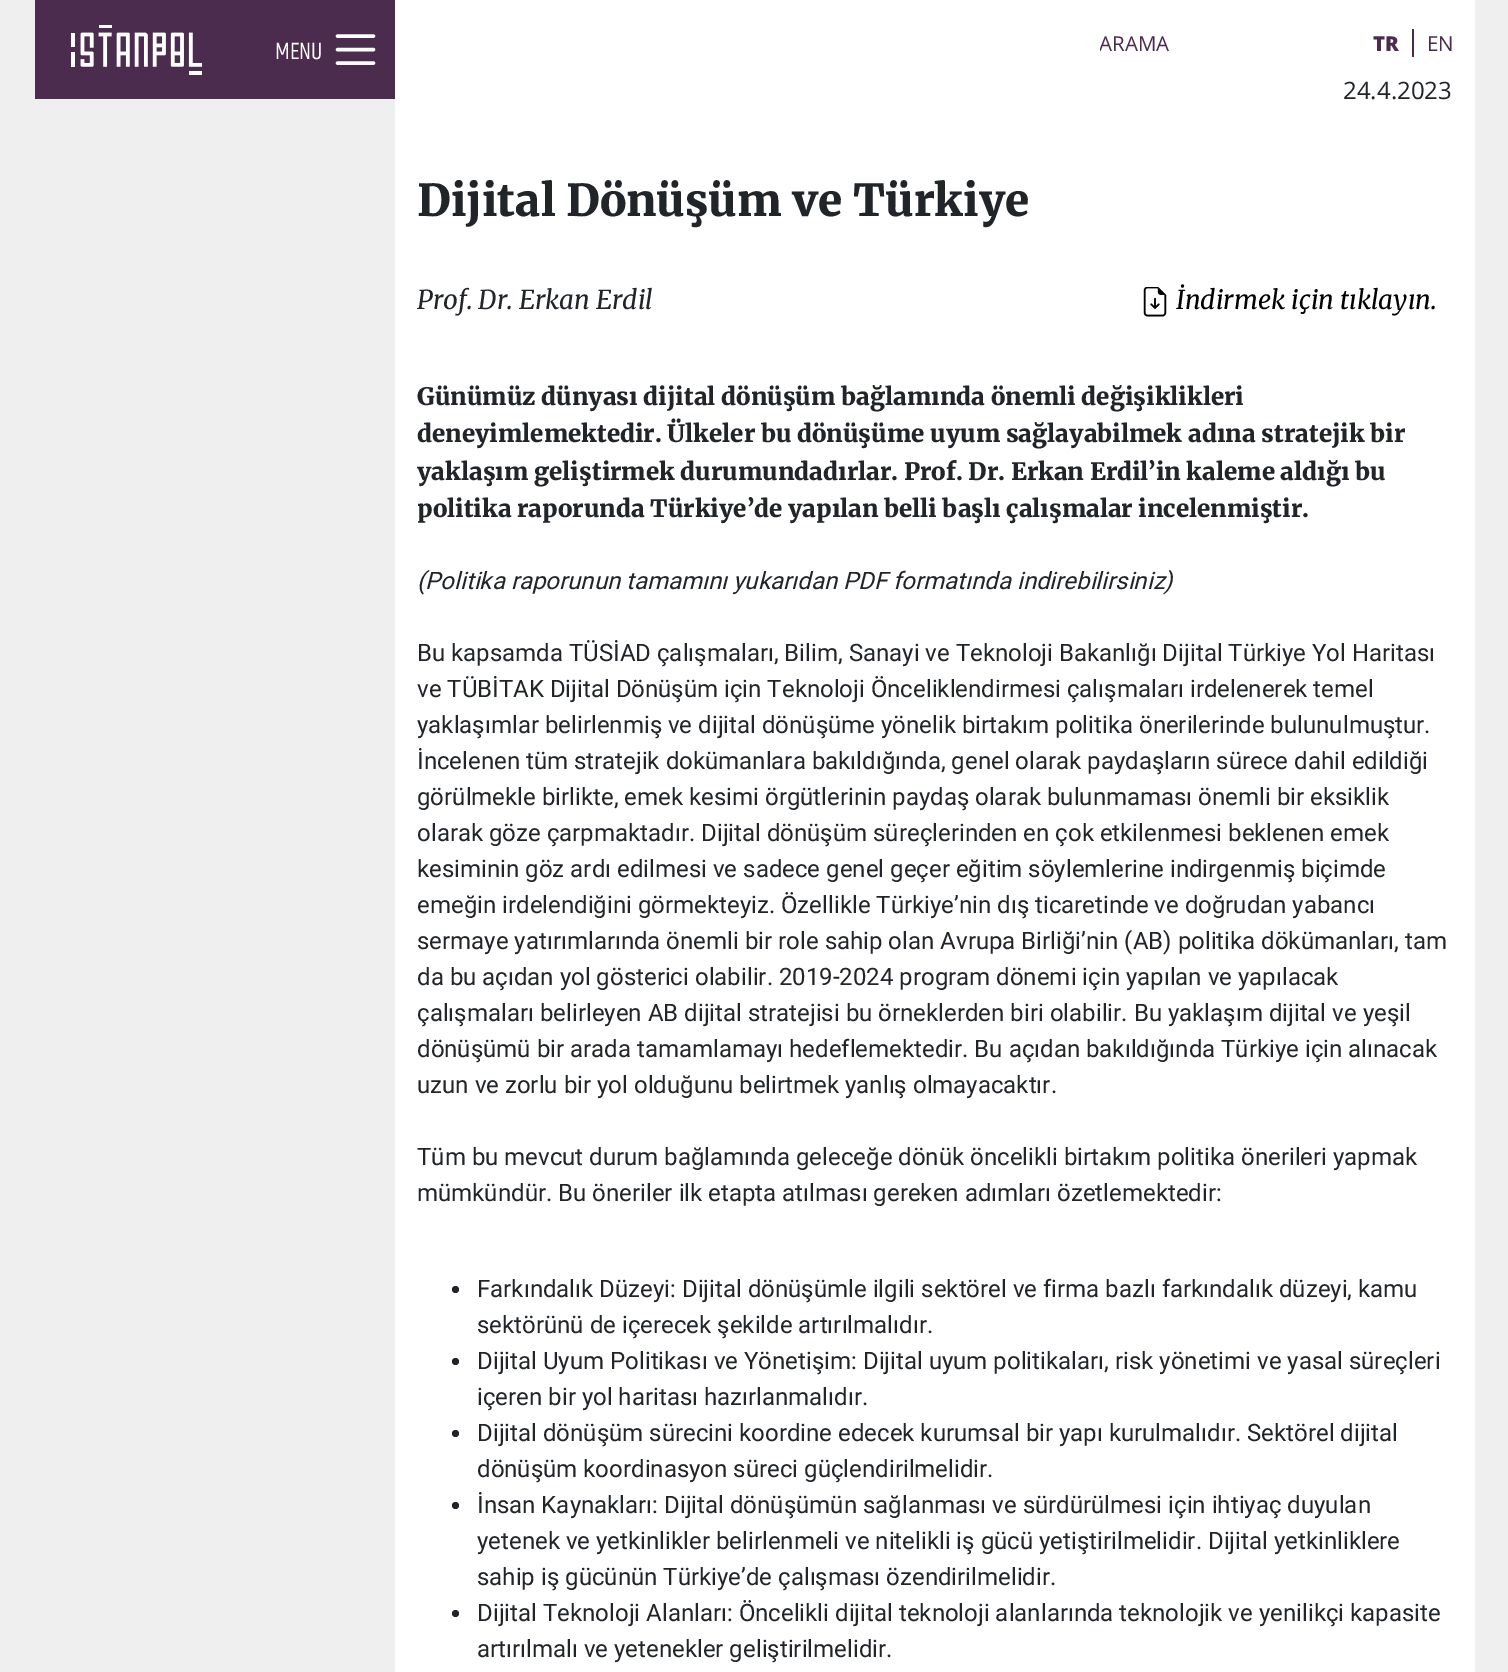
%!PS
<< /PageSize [1508 1672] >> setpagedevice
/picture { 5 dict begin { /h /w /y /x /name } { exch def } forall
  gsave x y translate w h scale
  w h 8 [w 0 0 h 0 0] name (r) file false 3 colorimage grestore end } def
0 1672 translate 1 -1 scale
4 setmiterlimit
0.937 setgray
0 0 1508 1672 rectfill
0.294 0.173 0.31 setrgbcolor
35 0 360 99 rectfill
(img1.rgb) 71 25 131 50 picture
/Khand-Regular [24 0 0 -24 0 0] selectfont
1 setgray
275 59 moveto (MENU) show
3.4 setlinewidth
1 setlinecap
1 setlinejoin
newpath 337.5 36 moveto 373.5 36 lineto 337.5 49.5 moveto 373.5 49.5 lineto 337.5 63 moveto 373.5 63 lineto stroke
395 0 1080 1672 rectfill
gsave
1100 29 225 30 rectclip
/OpenSans-Regular [20.5 0 0 -20.5 0 0] selectfont
0.294 0.173 0.31 setrgbcolor
1099 51 moveto (ARAMA) show
grestore
/OpenSans-ExtraBold [20.5 0 0 -20.5 0 0] selectfont
0.294 0.173 0.31 setrgbcolor
1373 51 moveto (TR) show
1412 29 2 28 rectfill
/OpenSans-Regular [20.5 0 0 -20.5 0 0] selectfont
1427 51 moveto (EN) show
/OpenSans-Regular [24 0 0 -24 0 0] selectfont
0.129 0.145 0.161 setrgbcolor
1343 99 moveto (24.4.2023) show
/Merriweather-Light [44 0 0 -44 0 0] selectfont
417 216 moveto (Dijital Dönüşüm ve Türkiye) show
/Merriweather-LightItalic [26 0 0 -26 0 0] selectfont
417 309 moveto (Prof. Dr. Erkan Erdil) show
(img2.rgb) 1143 287 24 30 picture
0 setgray
1176 309 moveto (İndirmek için tıklayın.) show
/Merriweather-Light [24 0 0 -24 0 0] selectfont
0.129 0.145 0.161 setrgbcolor
417 405 moveto (Günümüz dünyası dijital dönüşüm bağlamında önemli değişiklikleri) show
417 442 moveto (deneyimlemektedir. Ülkeler bu dönüşüme uyum sağlayabilmek adına stratejik bir) show
417 480 moveto (yaklaşım geliştirmek durumundadırlar. Prof. Dr. Erkan Erdil’in kaleme aldığı bu) show
417 517 moveto (politika raporunda Türkiye’de yapılan belli başlı çalışmalar incelenmiştir.) show
/Roboto-Italic [24 0 0 -24 0 0] selectfont
417 589 moveto (\(Politika raporunun tamamını yukarıdan PDF formatında indirebilirsiniz\)) show
/Roboto-Regular [24 0 0 -24 0 0] selectfont
417 661 moveto (Bu kapsamda TÜSİAD çalışmaları, Bilim, Sanayi ve Teknoloji Bakanlığı Dijital Türkiye Yol Haritası) show
417 697 moveto (ve TÜBİTAK Dijital Dönüşüm için Teknoloji Önceliklendirmesi çalışmaları irdelenerek temel) show
417 733 moveto (yaklaşımlar belirlenmiş ve dijital dönüşüme yönelik birtakım politika önerilerinde bulunulmuştur.) show
417 769 moveto (İncelenen tüm stratejik dokümanlara bakıldığında, genel olarak paydaşların sürece dahil edildiği) show
417 805 moveto (görülmekle birlikte, emek kesimi örgütlerinin paydaş olarak bulunmaması önemli bir eksiklik) show
417 841 moveto (olarak göze çarpmaktadır. Dijital dönüşüm süreçlerinden en çok etkilenmesi beklenen emek) show
417 877 moveto (kesiminin göz ardı edilmesi ve sadece genel geçer eğitim söylemlerine indirgenmiş biçimde) show
417 913 moveto (emeğin irdelendiğini görmekteyiz. Özellikle Türkiye’nin dış ticaretinde ve doğrudan yabancı) show
417 949 moveto (sermaye yatırımlarında önemli bir role sahip olan Avrupa Birliği’nin \(AB\) politika dökümanları, tam) show
417 985 moveto (da bu açıdan yol gösterici olabilir. 2019-2024 program dönemi için yapılan ve yapılacak) show
417 1021 moveto (çalışmaları belirleyen AB dijital stratejisi bu örneklerden biri olabilir. Bu yaklaşım dijital ve yeşil) show
417 1057 moveto (dönüşümü bir arada tamamlamayı hedeflemektedir. Bu açıdan bakıldığında Türkiye için alınacak) show
417 1093 moveto (uzun ve zorlu bir yol olduğunu belirtmek yanlış olmayacaktır.) show
417 1165 moveto (Tüm bu mevcut durum bağlamında geleceğe dönük öncelikli birtakım politika önerileri yapmak) show
417 1201 moveto (mümkündür. Bu öneriler ilk etapta atılması gereken adımları özetlemektedir:) show
newpath 455.5 1289.5 3.5 0 360 arc closepath fill
477 1297 moveto (Farkındalık Düzeyi: Dijital dönüşümle ilgili sektörel ve firma bazlı farkındalık düzeyi, kamu) show
477 1333 moveto (sektörünü de içerecek şekilde artırılmalıdır.) show
newpath 455.5 1361.5 3.5 0 360 arc closepath fill
477 1369 moveto (Dijital Uyum Politikası ve Yönetişim: Dijital uyum politikaları, risk yönetimi ve yasal süreçleri) show
477 1405 moveto (içeren bir yol haritası hazırlanmalıdır.) show
newpath 455.5 1433.5 3.5 0 360 arc closepath fill
477 1441 moveto (Dijital dönüşüm sürecini koordine edecek kurumsal bir yapı kurulmalıdır. Sektörel dijital) show
477 1477 moveto (dönüşüm koordinasyon süreci güçlendirilmelidir.) show
newpath 455.5 1505.5 3.5 0 360 arc closepath fill
477 1513 moveto (İnsan Kaynakları: Dijital dönüşümün sağlanması ve sürdürülmesi için ihtiyaç duyulan) show
477 1549 moveto (yetenek ve yetkinlikler belirlenmeli ve nitelikli iş gücü yetiştirilmelidir. Dijital yetkinliklere) show
477 1585 moveto (sahip iş gücünün Türkiye’de çalışması özendirilmelidir.) show
newpath 455.5 1613.5 3.5 0 360 arc closepath fill
477 1621 moveto (Dijital Teknoloji Alanları: Öncelikli dijital teknoloji alanlarında teknolojik ve yenilikçi kapasite) show
477 1657 moveto (artırılmalı ve yetenekler geliştirilmelidir.) show
showpage
